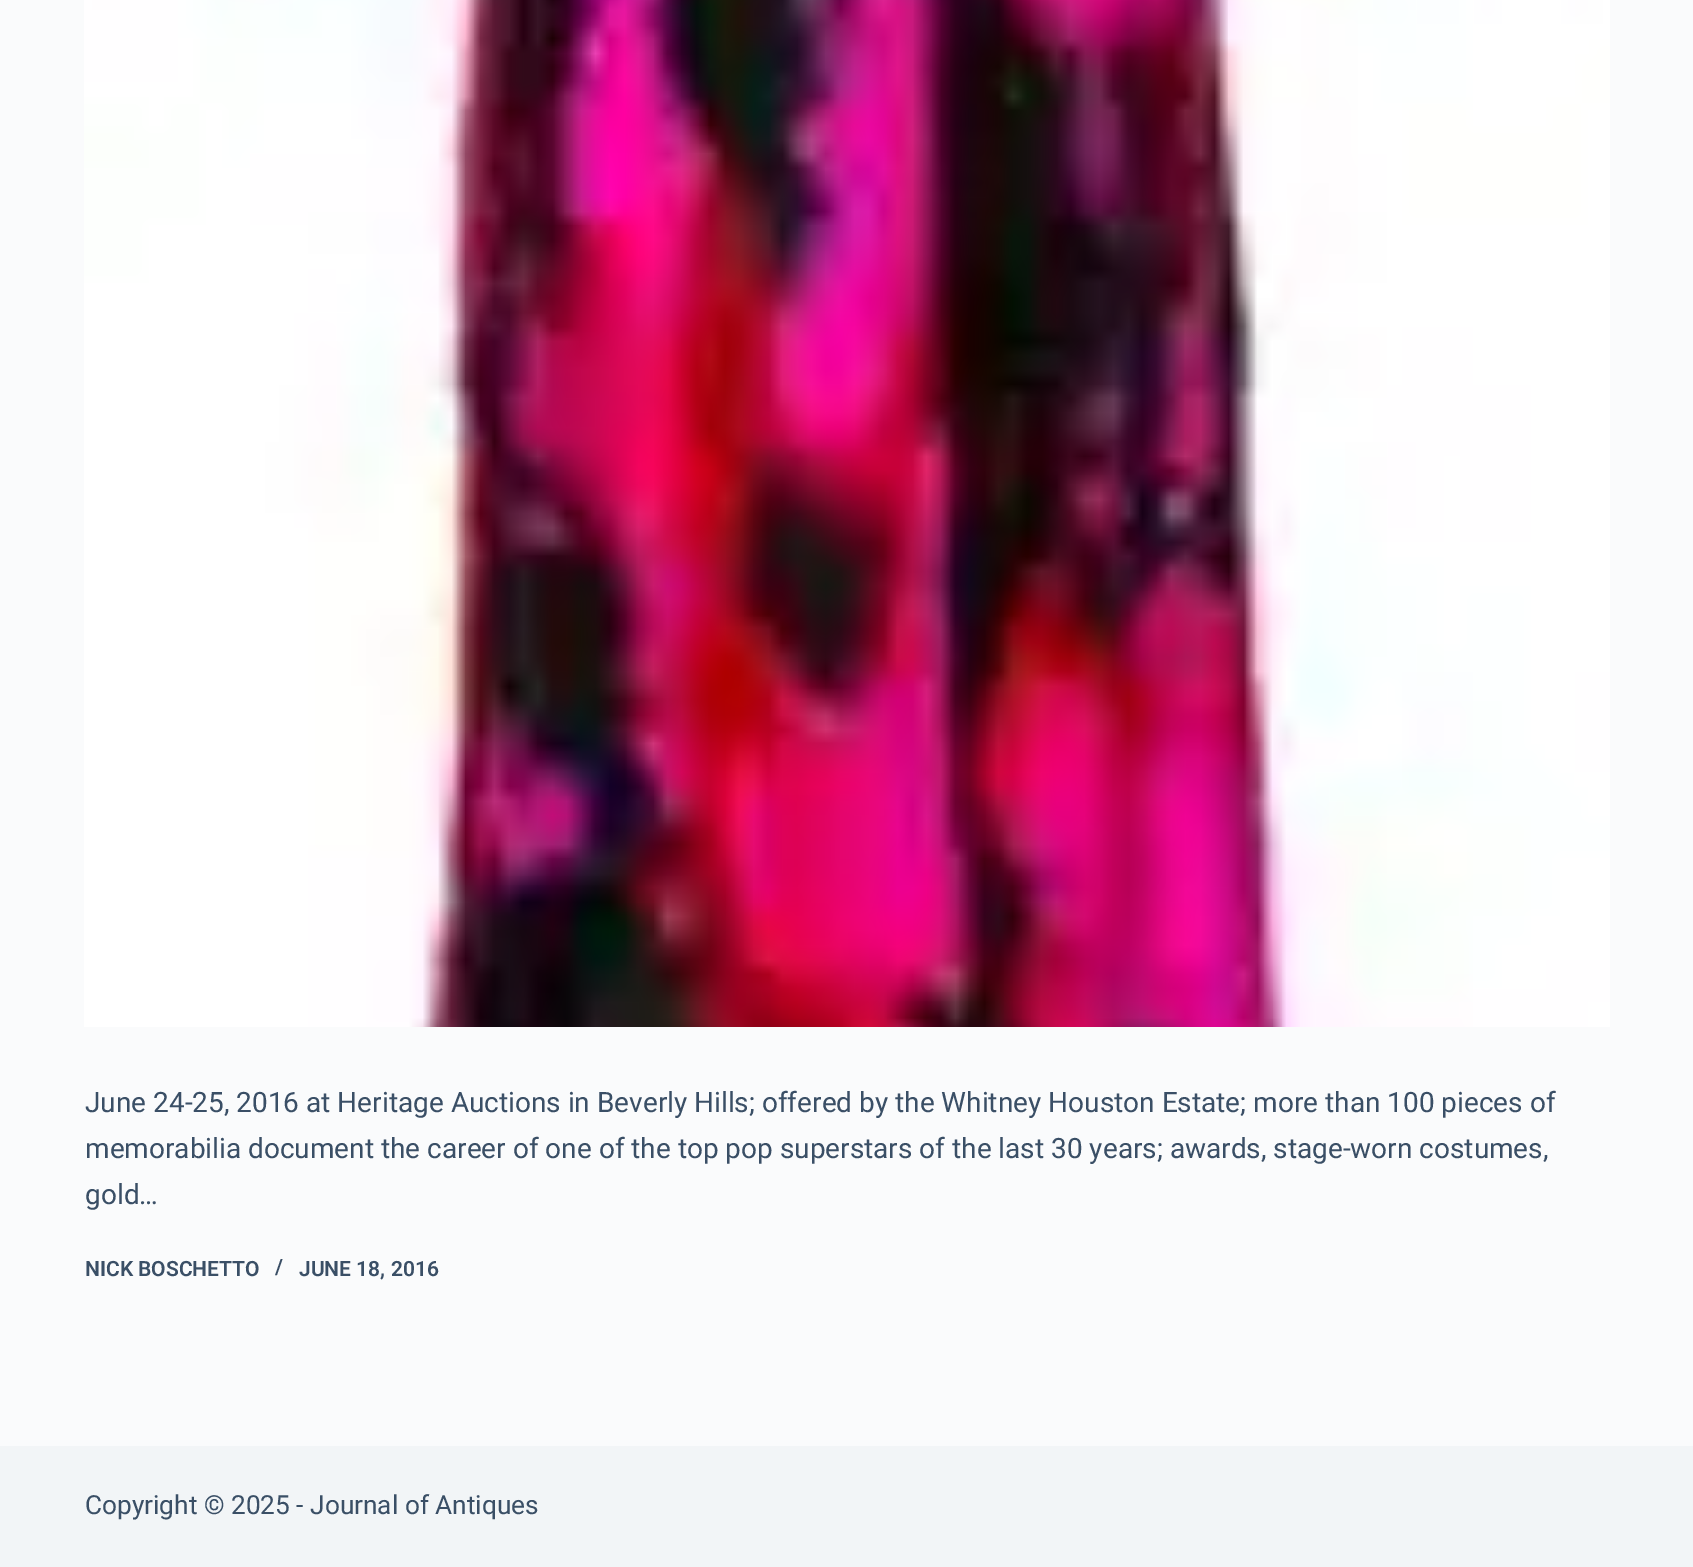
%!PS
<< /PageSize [1693 1567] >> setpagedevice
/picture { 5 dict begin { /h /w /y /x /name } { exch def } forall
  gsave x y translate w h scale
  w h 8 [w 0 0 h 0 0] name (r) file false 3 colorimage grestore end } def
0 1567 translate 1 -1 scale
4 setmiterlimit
0.98 0.984 0.988 setrgbcolor
0 0 1693 1567 rectfill
(img1.rgb) 84 0 1526 1027 picture
/Roboto-Regular [28 0 0 -28 0 0] selectfont
0.227 0.31 0.4 setrgbcolor
85 1112 moveto (June 24-25, 2016 at Heritage Auctions in Beverly Hills; offered by the Whitney Houston Estate; more than 100 pieces of) show
85 1158 moveto (memorabilia document the career of one of the top pop superstars of the last 30 years; awards, stage-worn costumes,) show
85 1204 moveto (gold…) show
/Roboto-SemiBold [21 0 0 -21 0 0] selectfont
85 1276 moveto (NICK BOSCHETTO) show
275 1274 moveto (/) show
299 1276 moveto (JUNE 18, 2016) show
0.949 0.961 0.969 setrgbcolor
0 1446 1693 121 rectfill
/Roboto-Regular [26.25 0 0 -26.25 0 0] selectfont
0.227 0.31 0.4 setrgbcolor
85 1514 moveto (Copyright © 2025 - Journal of Antiques) show
showpage
